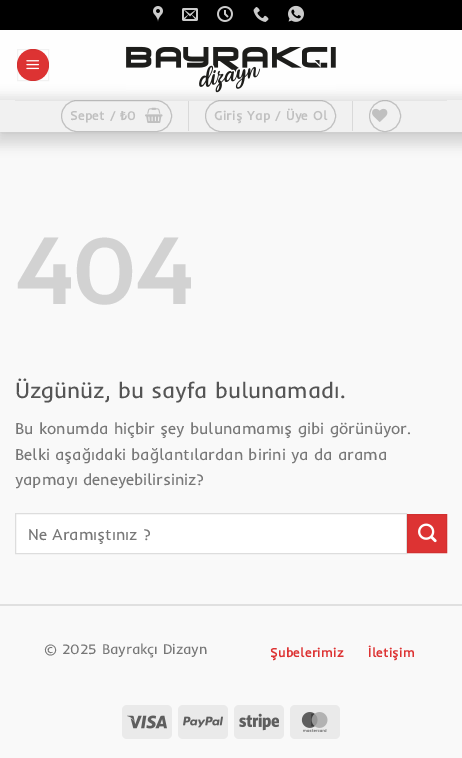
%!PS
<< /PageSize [462 758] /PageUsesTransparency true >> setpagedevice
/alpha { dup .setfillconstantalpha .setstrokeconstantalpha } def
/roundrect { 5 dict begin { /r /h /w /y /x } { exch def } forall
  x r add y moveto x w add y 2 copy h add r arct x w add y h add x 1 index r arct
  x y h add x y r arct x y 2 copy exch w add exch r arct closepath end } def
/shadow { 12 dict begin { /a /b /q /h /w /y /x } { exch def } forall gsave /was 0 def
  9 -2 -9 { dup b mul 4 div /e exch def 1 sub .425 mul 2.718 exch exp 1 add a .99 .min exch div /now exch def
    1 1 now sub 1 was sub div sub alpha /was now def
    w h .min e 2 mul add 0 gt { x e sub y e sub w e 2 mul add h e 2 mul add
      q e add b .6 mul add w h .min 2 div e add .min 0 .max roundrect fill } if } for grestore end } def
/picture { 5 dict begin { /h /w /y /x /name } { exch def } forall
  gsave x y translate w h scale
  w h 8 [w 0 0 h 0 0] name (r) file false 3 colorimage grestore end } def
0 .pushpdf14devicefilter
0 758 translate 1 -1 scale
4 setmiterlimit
0.976 setgray
0 0 462 758 rectfill
0 setgray
1 1 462 132 0 5 0.15 shadow
0 0 462 30 rectfill
(img1.rgb) 153 6 10 16 picture
(img2.rgb) 182 8 16 13 picture
(img3.rgb) 217 6 16 16 picture
(img4.rgb) 253 7 16 15 picture
(img5.rgb) 288 5 16 17 picture
0.996 setgray
0 30 462 70 rectfill
0 setgray
-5 95 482 52 0 5 0.1 shadow
0.867 0.2 0.2 setrgbcolor
newpath 33 65 16 0 360 arc closepath fill
0.05 alpha
0 setgray
17.5 49.5 31 31 rectstroke
1 alpha
(img6.rgb) 26 60 13 10 picture
(img7.rgb) 126 46 210 47 picture
0.945 setgray
0 100 462 32 rectfill
0.753 setgray
61.5 100.5 110 31 15.5 roundrect stroke
205.5 100.5 130 31 15.5 roundrect stroke
newpath 385 116 15.5 0 360 arc closepath stroke
0.1 alpha
0.467 setgray
15 100 432 1 rectfill
/Inder-Bold [12.75 0 0 -12.75 0 0] selectfont
1 alpha
0.753 setgray
70 120 moveto 0.4 0 (Sepet /) ashow
/NotoSans-Bold [12.75 0 0 -12.75 0 0] selectfont
120 120 moveto 0.4 0 (₺) ashow
/Inder-Bold [12.75 0 0 -12.75 0 0] selectfont
127 120 moveto 0.4 0 (0) ashow
(img8.rgb) 145 107 18 16 picture
0.851 setgray
188 101 1 30 rectfill
0.753 setgray
214 120 moveto 0.4 0 (Giriş Yap / Üye Ol) ashow
0.851 setgray
352 101 1 30 rectfill
(img9.rgb) 372 108 16 14 picture
/Inder-Bold [96 0 0 -96 0 0] selectfont
0.824 setgray
15 304 moveto (404) show
/Inder-Regular [22.4 0 0 -22.4 0 0] selectfont
0.333 setgray
15 398 moveto (Üzgünüz, bu sayfa bulunamadı.) show
/Inder-Regular [16 0 0 -16 0 0] selectfont
0.467 setgray
15 434 moveto (Bu konumda hiçbir şey bulunamamış gibi görünüyor.) show
15 460 moveto (Belki aşağıdaki bağlantılardan birini ya da arama) show
15 485 moveto (yapmayı deneyebilirsiniz?) show
1 setgray
newpath 15.5 513.5 moveto 406.5 513.5 lineto 406.5 553.5 lineto 15.5 553.5 lineto closepath gsave fill grestore
0.867 setgray
stroke
0.467 setgray
28 540 moveto (Ne Aramıştınız ?) show
0.867 0.2 0.2 setrgbcolor
newpath 407.5 514.5 moveto 446.5 514.5 lineto 446.5 552.5 lineto 407.5 552.5 lineto closepath gsave fill grestore
0.824 0.188 0.188 setrgbcolor
stroke
(img10.rgb) 418 523 19 20 picture
0.878 setgray
0 604 462 2 rectfill
/Inder-Regular [14.4 0 0 -14.4 0 0] selectfont
0.467 setgray
44 654 moveto (© 2025 Bayrakçı Dizayn) show
/Inder-Bold [12.75 0 0 -12.75 0 0] selectfont
0.867 0.2 0.2 setrgbcolor
270 657 moveto 0.4 0 (Şubelerimiz) ashow
368 657 moveto 0.4 0 (İletişim) ashow
0.918 setgray
122 705 50 34 5 roundrect fill
(img11.rgb) 127 715 40 14 picture
178 705 50 34 5 roundrect fill
(img12.rgb) 183 716 40 12 picture
234 705 50 34 5 roundrect fill
(img13.rgb) 239 713 40 18 picture
290 705 50 34 5 roundrect fill
(img14.rgb) 301 712 27 20 picture
.poppdf14devicefilter showpage
